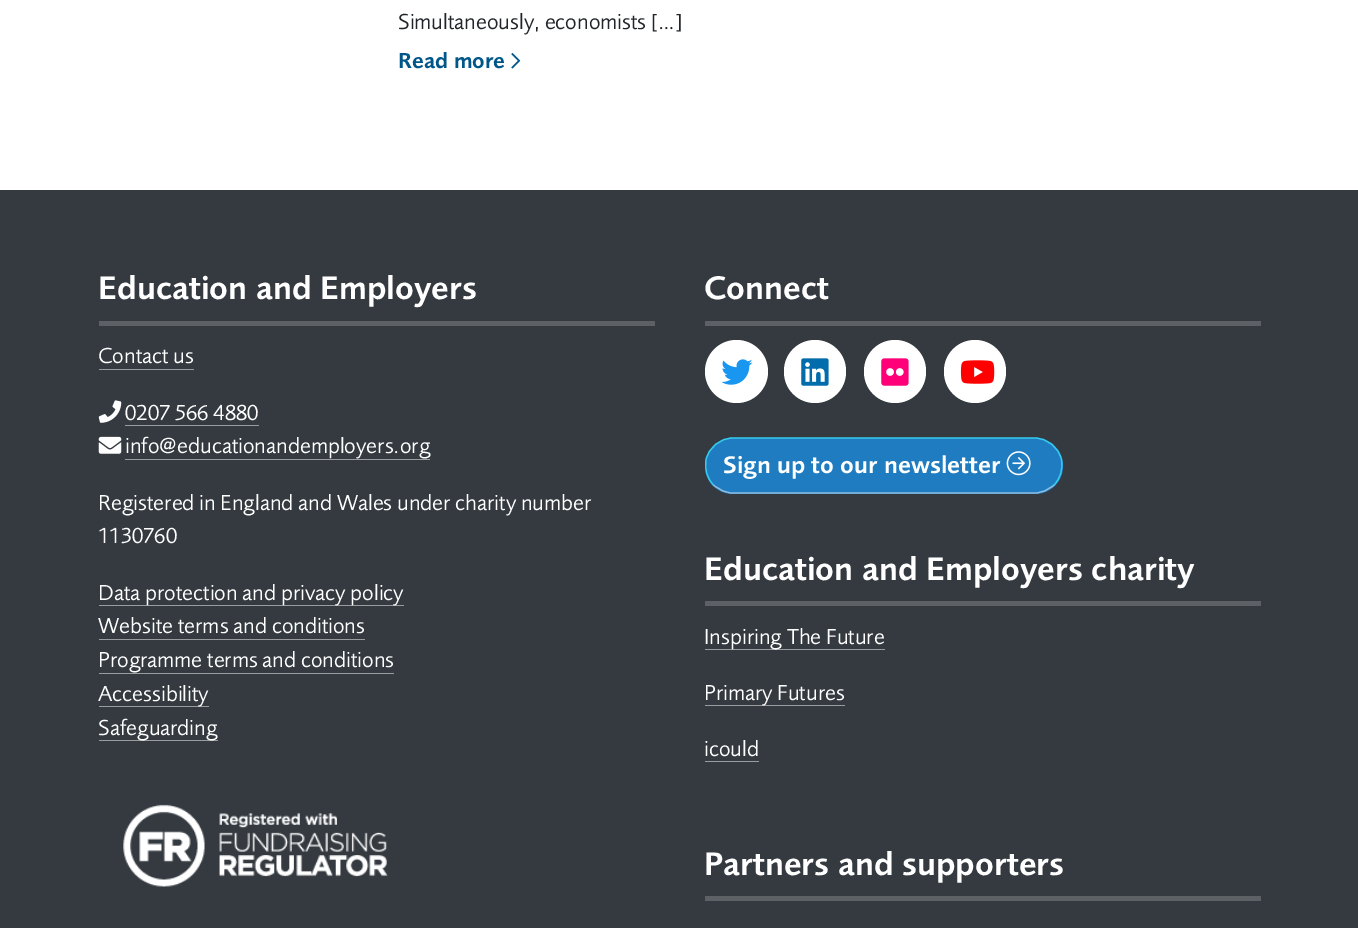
%!PS
<< /PageSize [1358 928] /PageUsesTransparency true >> setpagedevice
/alpha { dup .setfillconstantalpha .setstrokeconstantalpha } def
/roundrect { 5 dict begin { /r /h /w /y /x } { exch def } forall
  x r add y moveto x w add y 2 copy h add r arct x w add y h add x 1 index r arct
  x y h add x y r arct x y 2 copy exch w add exch r arct closepath end } def
/picture { 5 dict begin { /h /w /y /x /name } { exch def } forall
  gsave x y translate w h scale
  w h 8 [w 0 0 h 0 0] name (r) file false 3 colorimage grestore end } def
0 .pushpdf14devicefilter
0 928 translate 1 -1 scale
4 setmiterlimit
0.204 0.227 0.251 setrgbcolor
0 0 1358 928 rectfill
1 setgray
0 0 1358 190 rectfill
/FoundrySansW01-Regular [22.5 0 0 -22.5 0 0] selectfont
0.129 0.145 0.161 setrgbcolor
398 29 moveto (Simultaneously, economists […]) show
/FoundrySansW01-SemiBold [22.5 0 0 -22.5 0 0] selectfont
0 0.337 0.537 setrgbcolor
398 68 moveto (Read more) show
(img1.rgb) 511 53 10 16 picture
0.365 0.38 0.4 setrgbcolor
99 321 556 5 rectfill
/FoundrySansW01-SemiBold [33.75 0 0 -33.75 0 0] selectfont
1 setgray
98 299 moveto (Education and Employers) show
/FoundrySansW01-Regular [22.5 0 0 -22.5 0 0] selectfont
98 363 moveto (Contact us) show
0.604 0.616 0.627 setrgbcolor
99 369 95 1 rectfill
(img2.rgb) 98 400 24 23 picture
1 setgray
125 420 moveto (0207 566 4880) show
0.604 0.616 0.627 setrgbcolor
125 425 134 1 rectfill
(img3.rgb) 98 436 24 18 picture
1 setgray
125 453 moveto (info@educationandemployers.org) show
0.604 0.616 0.627 setrgbcolor
125 459 305 1 rectfill
1 setgray
98 510 moveto (Registered in England and Wales under charity number) show
98 543 moveto (1130760) show
0.604 0.616 0.627 setrgbcolor
99 605 305 1 rectfill
1 setgray
98 600 moveto (Data protection and privacy policy) show
98 633 moveto (Website terms and conditions) show
0.604 0.616 0.627 setrgbcolor
99 639 266 1 rectfill
1 setgray
98 667 moveto (Programme terms and conditions) show
0.604 0.616 0.627 setrgbcolor
99 673 295 1 rectfill
99 706 110 1 rectfill
1 setgray
98 701 moveto (Accessibility) show
0.604 0.616 0.627 setrgbcolor
99 740 119 1 rectfill
1 setgray
98 735 moveto (Safeguarding) show
(img4.rgb) 123 804 265 83 picture
0.365 0.38 0.4 setrgbcolor
705 321 556 5 rectfill
/FoundrySansW01-SemiBold [33.75 0 0 -33.75 0 0] selectfont
1 setgray
704 299 moveto (Connect) show
newpath 736.5 371.5 31.5 0 360 arc closepath fill
(img5.rgb) 721 359 32 26 picture
784 340 62 63 31 roundrect fill
(img6.rgb) 801 358 28 28 picture
864 340 62 63 31 roundrect fill
(img7.rgb) 881 358 28 28 picture
944 340 62 63 31 roundrect fill
(img8.rgb) 960 360 35 24 picture
0.122 0.486 0.753 setrgbcolor
705 438 358 56 28 roundrect fill
0.5 alpha
1 setgray
1.2 setlinewidth
newpath 1054 485 moveto 1048.5 490 1041.5 493 1034.5 493 curveto 733 493 lineto 726 493 719 490 713.5 485 curveto stroke
1 alpha
0.212 0.8 0.937 setrgbcolor
newpath 713.5 485 moveto 707 478.5 704.5 469 706 460 curveto 708.5 447.5 720 438 733 438 curveto 1034.5 438 lineto 1047.5 438 1059 447.5 1061.5 460 curveto 1063 469 1060.5 478.5 1054 485 curveto stroke
/FoundrySansW01-SemiBold [24.75 0 0 -24.75 0 0] selectfont
1 setgray
723 473 moveto (Sign up to our newsletter) show
(img9.rgb) 1006 451 25 25 picture
0.365 0.38 0.4 setrgbcolor
705 601 556 5 rectfill
/FoundrySansW01-SemiBold [33.75 0 0 -33.75 0 0] selectfont
1 setgray
704 580 moveto (Education and Employers charity) show
0.604 0.616 0.627 setrgbcolor
705 649 180 1 rectfill
/FoundrySansW01-Regular [22.5 0 0 -22.5 0 0] selectfont
1 setgray
704 644 moveto (Inspiring The Future) show
0.604 0.616 0.627 setrgbcolor
705 705 140 1 rectfill
1 setgray
704 700 moveto (Primary Futures) show
704 756 moveto (icould) show
0.604 0.616 0.627 setrgbcolor
705 761 54 1 rectfill
0.365 0.38 0.4 setrgbcolor
705 896 556 5 rectfill
/FoundrySansW01-SemiBold [33.75 0 0 -33.75 0 0] selectfont
1 setgray
704 875 moveto (Partners and supporters) show
.poppdf14devicefilter showpage
